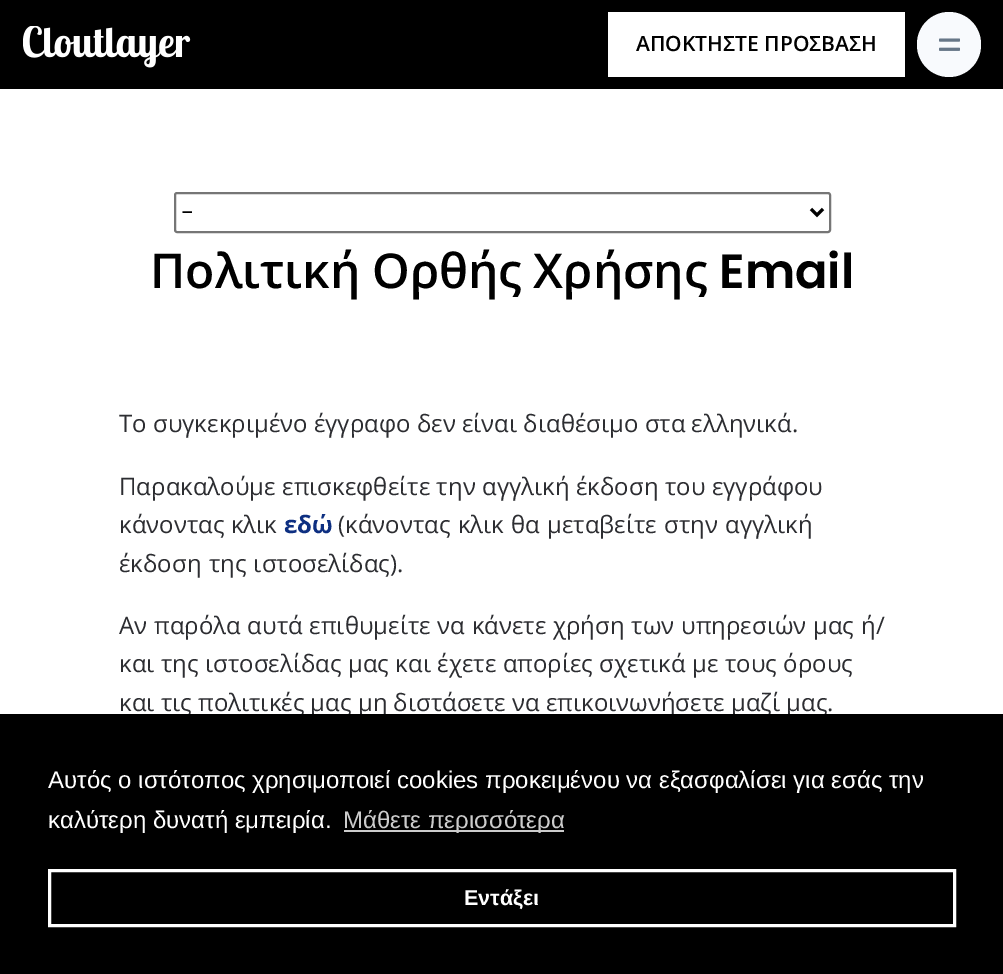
%!PS
<< /PageSize [1003 974] >> setpagedevice
/roundrect { 5 dict begin { /r /h /w /y /x } { exch def } forall
  x r add y moveto x w add y 2 copy h add r arct x w add y h add x 1 index r arct
  x y h add x y r arct x y 2 copy exch w add exch r arct closepath end } def
/picture { 5 dict begin { /h /w /y /x /name } { exch def } forall
  gsave x y translate w h scale
  w h 8 [w 0 0 h 0 0] name (r) file false 3 colorimage grestore end } def
0 974 translate 1 -1 scale
4 setmiterlimit
1 setgray
0 0 1003 974 rectfill
0 setgray
0 0 1003 89 rectfill
(img1.rgb) 23 26 168 42 picture
1 setgray
608 12 297 65 rectfill
/OpenSans-SemiBold [21 0 0 -21 0 0] selectfont
0 setgray
636 51 moveto (ΑΠΟΚΤΗΣΤΕ ΠΡΟΣΒΑΣΗ) show
0.973 0.98 0.992 setrgbcolor
917 12 64 65 32 roundrect fill
(img2.rgb) 939 38 21 13 picture
0.463 setgray
2 setlinewidth
175 193 655 39 2 roundrect stroke
0 setgray
3 setlinewidth
newpath 811 209 moveto 817 215 lineto 823 209 lineto stroke
/Poppins-Regular [24 0 0 -24 0 0] selectfont
181 221 moveto (-) show
/OpenSans-SemiBold [48 0 0 -48 0 0] selectfont
150 288 moveto -1 0 32 (Πολιτική Ορθής Χρήσης) widthshow
/Poppins-SemiBold [48 0 0 -48 0 0] selectfont
719 288 moveto (Email) show
/OpenSans-Regular [24 0 0 -24 0 0] selectfont
0.173 0.176 0.192 setrgbcolor
119 432 moveto (Το συγκεκριμένο έγγραφο δεν είναι διαθέσιμο στα ελληνικά.) show
119 495 moveto 0.25 0 32 (Παρακαλούμε επισκεφθείτε την αγγλική έκδοση του εγγράφου) widthshow
119 533 moveto (κάνοντας κλικ) show
/OpenSans-Bold [24 0 0 -24 0 0] selectfont
0.051 0.184 0.506 setrgbcolor
284 533 moveto (εδώ) show
/OpenSans-Regular [24 0 0 -24 0 0] selectfont
0.173 0.176 0.192 setrgbcolor
338 533 moveto 1 0 32 (\(κάνοντας κλικ θα μεταβείτε στην αγγλική) widthshow
119 572 moveto 1 0 32 (έκδοση της ιστοσελίδας\).) widthshow
119 634 moveto 0.5 0 32 (Αν παρόλα αυτά επιθυμείτε να κάνετε χρήση των υπηρεσιών μας ή/) widthshow
119 672 moveto 0.25 0 32 (και της ιστοσελίδας μας και έχετε απορίες σχετικά με τους όρους) widthshow
119 711 moveto (και τις πολιτικές μας μη διστάσετε να επικοινωνήσετε μαζί μας.) show
0 setgray
0 714 1003 260 rectfill
/LiberationSans-Regular [24 0 0 -24 0 0] selectfont
1 setgray
48 788 moveto (Αυτός ο ιστότοπος χρησιμοποιεί cookies προκειμένου να εξασφαλίσει για εσάς την) show
48 828 moveto (καλύτερη δυνατή εμπειρία.) show
0.8 setgray
344 830 220 2 rectfill
343 828 moveto (Μάθετε περισσότερα) show
1 setgray
49.5 870.5 905 55 rectstroke
/LiberationSans-Bold [21.5 0 0 -21.5 0 0] selectfont
464 905 moveto (Εντάξει) show
showpage
